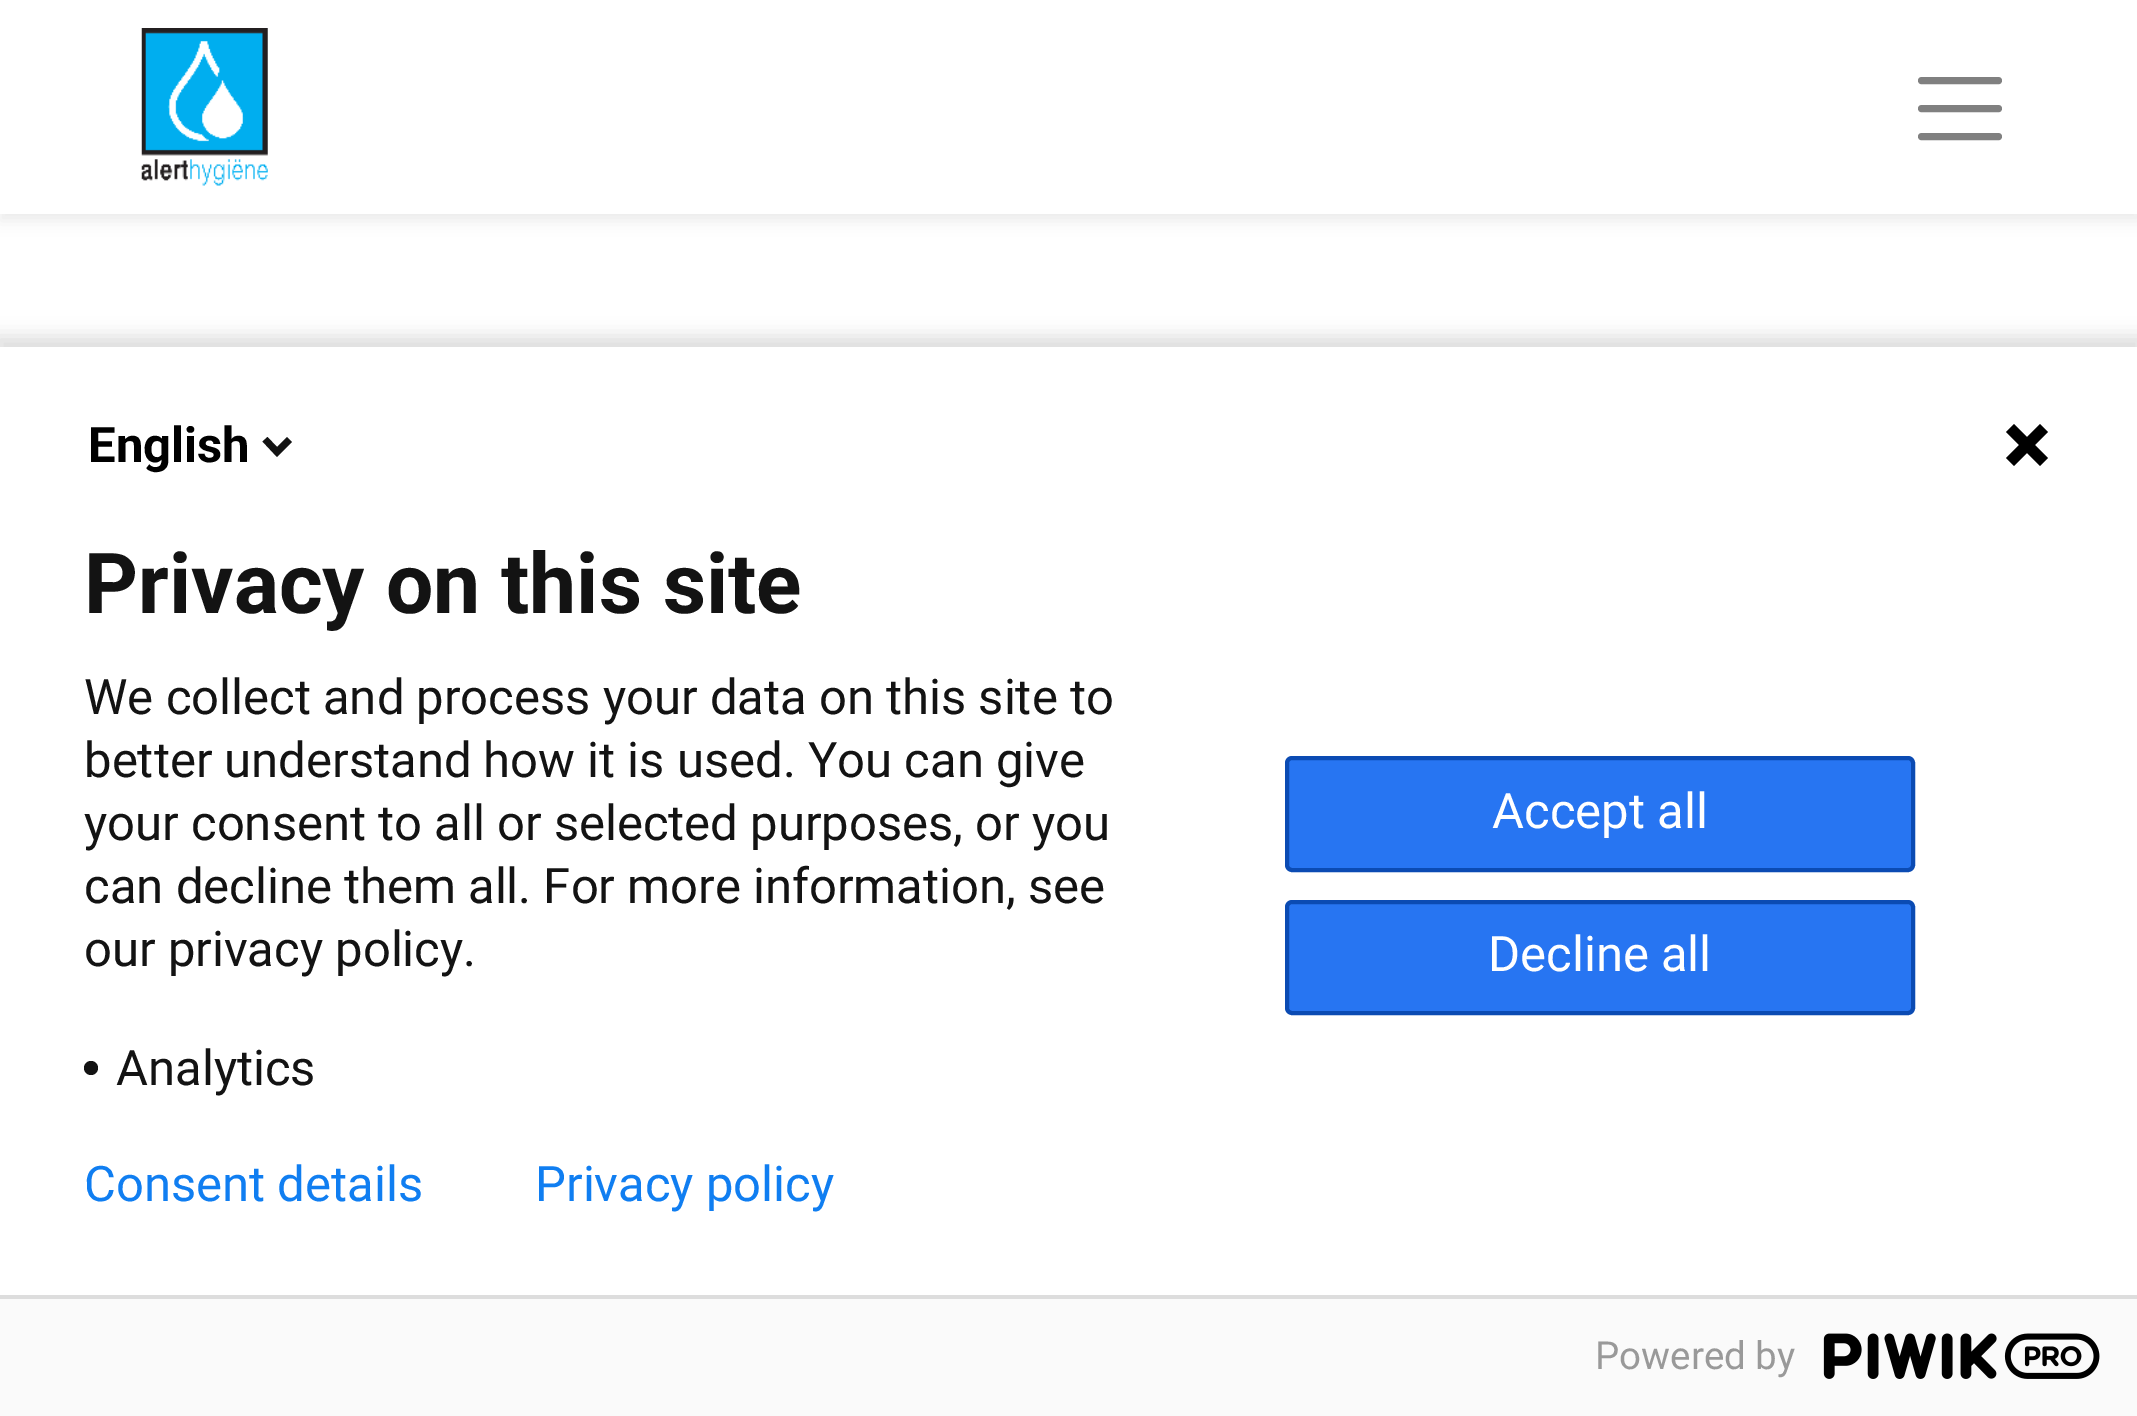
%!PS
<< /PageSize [2137 1416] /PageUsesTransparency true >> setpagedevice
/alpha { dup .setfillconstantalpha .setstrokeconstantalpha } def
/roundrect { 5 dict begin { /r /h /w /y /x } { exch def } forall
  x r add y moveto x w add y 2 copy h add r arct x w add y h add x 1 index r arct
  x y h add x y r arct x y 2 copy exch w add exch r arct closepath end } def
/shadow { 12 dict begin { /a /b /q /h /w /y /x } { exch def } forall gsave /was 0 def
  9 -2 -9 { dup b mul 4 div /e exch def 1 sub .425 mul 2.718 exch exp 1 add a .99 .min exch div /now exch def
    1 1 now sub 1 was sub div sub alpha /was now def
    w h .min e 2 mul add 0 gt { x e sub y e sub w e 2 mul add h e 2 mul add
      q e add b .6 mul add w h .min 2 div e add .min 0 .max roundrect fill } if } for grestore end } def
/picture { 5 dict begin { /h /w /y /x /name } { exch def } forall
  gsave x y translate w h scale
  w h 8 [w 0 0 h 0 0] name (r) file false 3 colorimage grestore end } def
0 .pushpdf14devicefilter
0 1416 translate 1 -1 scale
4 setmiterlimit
1 setgray
0 0 2137 1416 rectfill
0 setgray
0 7 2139 214 0 7 0.07 shadow
1 setgray
0 0 2137 214 rectfill
(img1.rgb) 141 28 127 158 picture
0.502 setgray
7 setlinewidth
1 setlinecap
newpath 1921.5 80.5 moveto 1998.5 80.5 lineto 1921.5 108.5 moveto 1998.5 108.5 lineto 1921.5 136.5 moveto 1998.5 136.5 lineto stroke
0 setgray
-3 336 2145 1078 0 9 0.14 shadow
1 setgray
0 347 2137 948 rectfill
/Roboto-Bold [49 0 0 -49 0 0] selectfont
0 setgray
88 462 moveto (English) show
0.075 setgray
newpath 277 447 moveto 287 437 lineto 292 442 lineto 277 457 lineto 262.5 441.5 lineto 267.5 437 lineto closepath fill
0 setgray
newpath 2006 432 moveto 2014 424 lineto 2048 458 lineto 2040 466 lineto 2006 432 lineto fill
newpath 2040 424 moveto 2048 432 lineto 2014 466 lineto 2006 458 lineto 2040 424 lineto fill
/Roboto-Bold [84 0 0 -84 0 0] selectfont
0.075 setgray
84 613 moveto (Privacy on this site) show
/Roboto-Regular [49 0 0 -49 0 0] selectfont
84 714 moveto (We collect and process your data on this site to) show
84 777 moveto (better understand how it is used. You can give) show
84 840 moveto (your consent to all or selected purposes, or you) show
84 903 moveto (can decline them all. For more information, see) show
84 966 moveto (our privacy policy.) show
newpath 91 1068 7 0 360 arc closepath fill
116 1085 moveto (Analytics) show
0.153 0.459 0.949 setrgbcolor
1287 758 626 112 5 roundrect gsave fill grestore
0.043 0.294 0.702 setrgbcolor
4 setlinewidth
0 setlinecap
stroke
1 setgray
1492 828 moveto (Accept all) show
0.153 0.459 0.949 setrgbcolor
1287 902 626 111 5 roundrect gsave fill grestore
0.043 0.294 0.702 setrgbcolor
stroke
1 setgray
1488 971 moveto (Decline all) show
0.063 0.494 0.945 setrgbcolor
84 1201 moveto (Consent details) show
535 1201 moveto (Privacy policy) show
0.98 setgray
0 1299 2137 117 rectfill
0.867 setgray
0 1295 2137 4 rectfill
/Roboto-Regular [38.5 0 0 -38.5 0 0] selectfont
0.6 setgray
1595 1369 moveto (Powered by) show
(img2.rgb) 1823 1333 277 46 picture
.poppdf14devicefilter showpage
